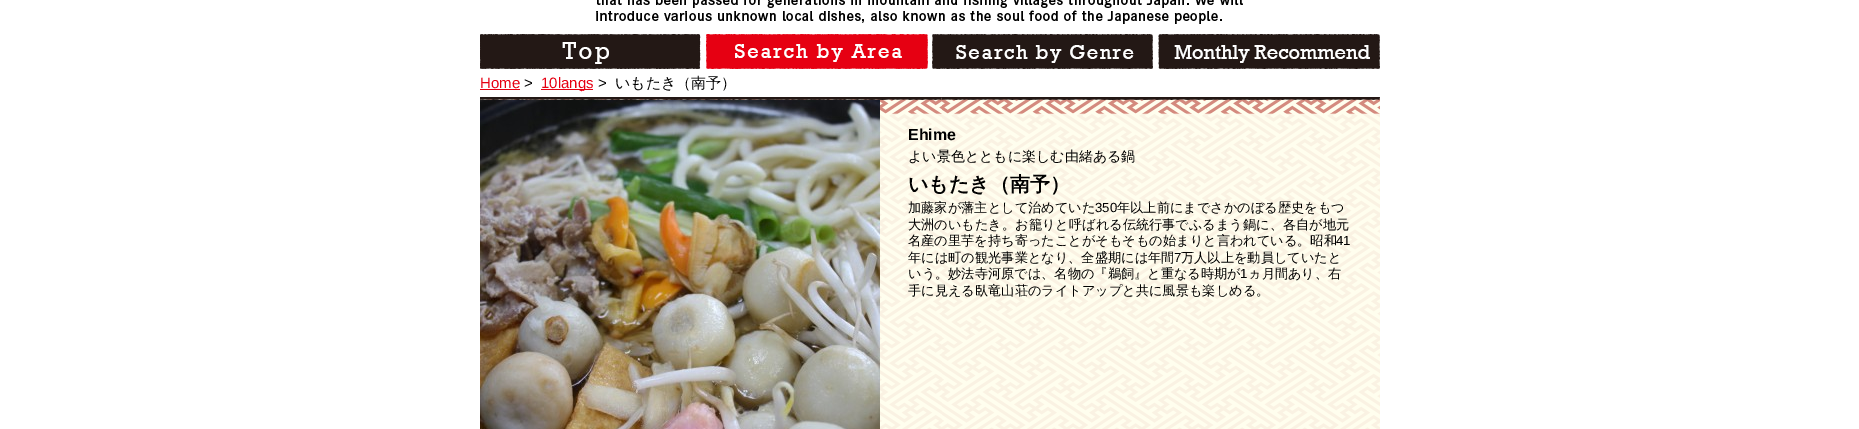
%!PS
<< /PageSize [1859 429] >> setpagedevice
/picture { 5 dict begin { /h /w /y /x /name } { exch def } forall
  gsave x y translate w h scale
  w h 8 [w 0 0 h 0 0] name (r) file false 3 colorimage grestore end } def
0 429 translate 1 -1 scale
4 setmiterlimit
1 setgray
0 0 1859 429 rectfill
(img1.rgb) 596 0 647 24 picture
(img2.rgb) 480 34 221 35 picture
(img3.rgb) 706 34 222 35 picture
(img4.rgb) 932 34 221 35 picture
(img5.rgb) 1158 34 222 35 picture
/LiberationSans-Regular [15 0 0 -15 0 0] selectfont
0.902 0 0.071 setrgbcolor
480 88 moveto (Home) show
480 89 40 1 rectfill
0 setgray
524 88 moveto (>) show
0.902 0 0.071 setrgbcolor
541 89 52 1 rectfill
541 88 moveto (10langs) show
0 setgray
598 88 moveto (>) show
/WenQuanYiZenHei-Medium [15 0 0 -15 0 0] selectfont
615 88 moveto (いもたき（南予）) show
(img6.rgb) 480 97 900 332 picture
(img7.rgb) 480 100 400 329 picture
/LiberationSans-Bold [16 0 0 -16 0 0] selectfont
908 140 moveto (Ehime) show
/WenQuanYiZenHei-Medium [14 0 0 -14 0 0] selectfont
908 161 moveto (よい景色とともに楽しむ由緒ある鍋) show
/WenQuanYiZenHei-Bold [20 0 0 -20 0 0] selectfont
908 191 moveto (いもたき（南予）) show
/WenQuanYiZenHei-Medium [13.2 0 0 -13.2 0 0] selectfont
908 212 moveto (加藤家が藩主として治めていた) show
/LiberationSans-Regular [13.2 0 0 -13.2 0 0] selectfont
1095 212 moveto (350) show
/WenQuanYiZenHei-Medium [13.2 0 0 -13.2 0 0] selectfont
1117 212 moveto (年以上前にまでさかのぼる歴史をもつ) show
908 229 moveto (大洲のいもたき。お籠りと呼ばれる伝統行事でふるまう鍋に、各自が地元) show
908 245 moveto (名産の里芋を持ち寄ったことがそもそもの始まりと言われている。昭和) show
/LiberationSans-Regular [13.2 0 0 -13.2 0 0] selectfont
1336 245 moveto (41) show
/WenQuanYiZenHei-Medium [13.2 0 0 -13.2 0 0] selectfont
908 262 moveto (年には町の観光事業となり、全盛期には年間) show
/LiberationSans-Regular [13.2 0 0 -13.2 0 0] selectfont
1174 262 moveto (7) show
/WenQuanYiZenHei-Medium [13.2 0 0 -13.2 0 0] selectfont
1181 262 moveto (万人以上を動員していたと) show
908 278 moveto (いう。妙法寺河原では、名物の『鵜飼』と重なる時期が) show
/LiberationSans-Regular [13.2 0 0 -13.2 0 0] selectfont
1240 278 moveto (1) show
/WenQuanYiZenHei-Medium [13.2 0 0 -13.2 0 0] selectfont
1248 278 moveto (ヵ月間あり、右) show
908 295 moveto (手に見える臥竜山荘のライトアップと共に風景も楽しめる。) show
showpage
